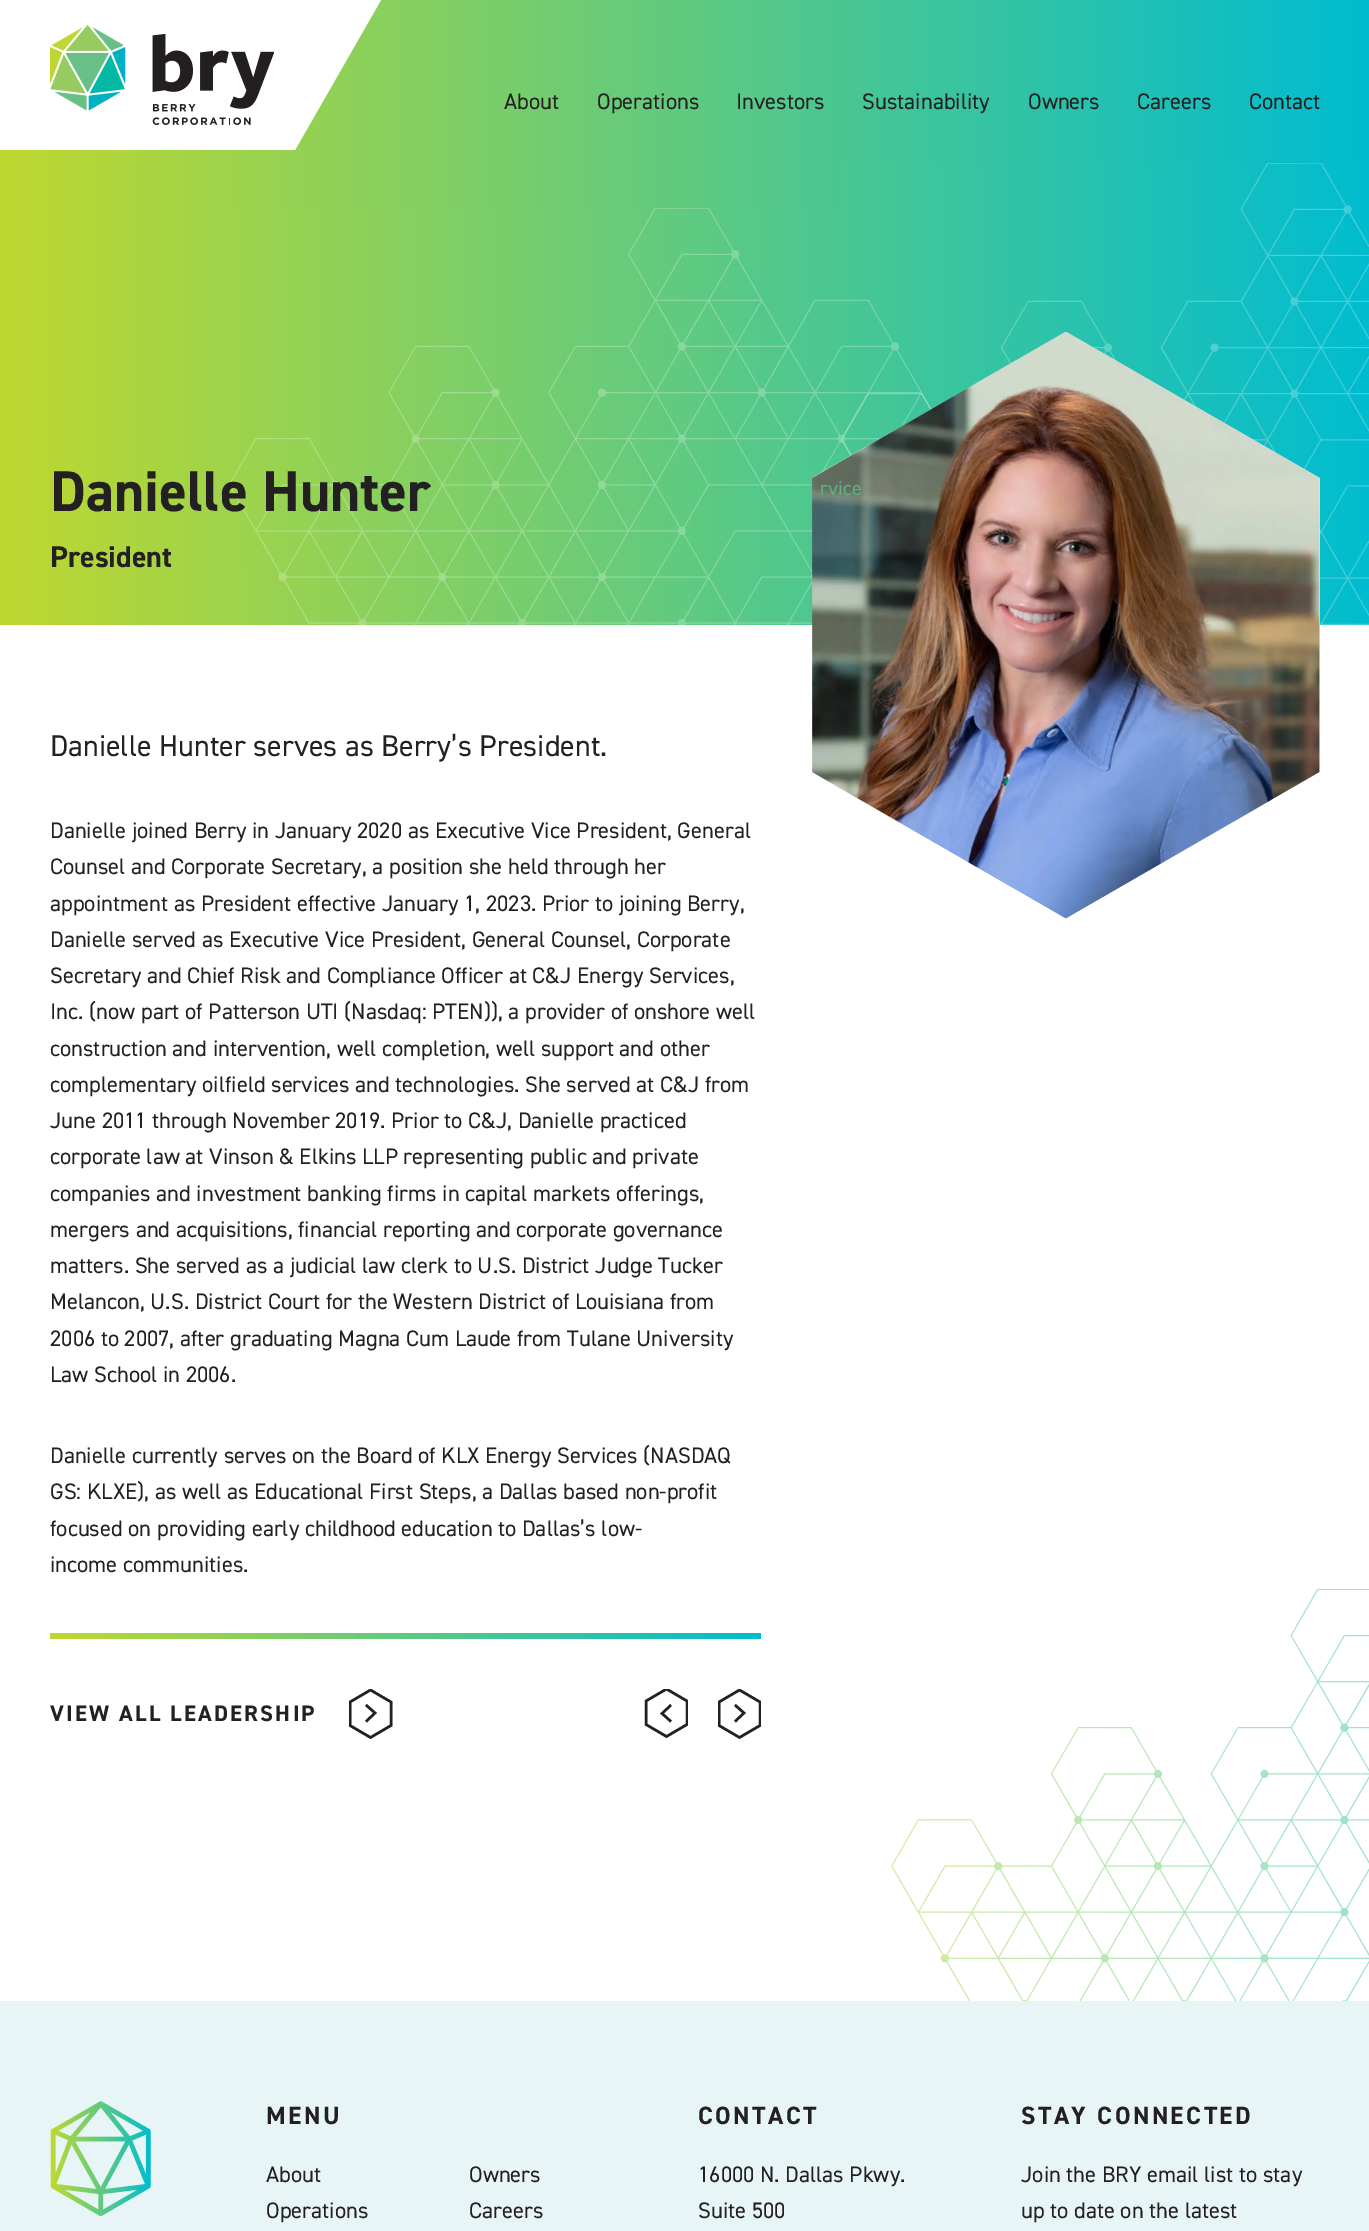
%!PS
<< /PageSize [1369 2231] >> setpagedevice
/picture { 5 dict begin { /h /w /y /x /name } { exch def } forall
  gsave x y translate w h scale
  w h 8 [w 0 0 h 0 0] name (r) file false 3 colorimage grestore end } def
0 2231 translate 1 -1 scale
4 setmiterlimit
1 setgray
0 0 1369 2231 rectfill
gsave newpath 0 0 moveto 1369 0 lineto 1369 625 lineto 0 625 lineto closepath clip newpath
<< /ShadingType 2 /ColorSpace /DeviceRGB /Coords [0 313 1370 312] /Extend [true true] /Function << /FunctionType 2 /Domain [0 1] /C0 [0.749 0.847 0.188] /C1 [0 0.737 0.816] /N 1 >> >> shfill grestore
newpath -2 150 moveto 295 150 lineto 381 0 lineto -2 0 lineto closepath fill
(img1.rgb) 50 25 224 100 picture
/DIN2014-Regular [22.5 0 0 -22.5 0 0] selectfont
0.141 0.122 0.129 setrgbcolor
504 109 moveto (About) show
597 109 moveto (Operations) show
736 109 moveto (Investors) show
(img3.rgb) 841 163 528 462 picture
(img2.rgb) 228 208 704 417 picture
0.882 setgray
newpath 813 773 moveto 813 477 lineto 1066 332 lineto 1320 478 lineto 1320 772 lineto 1066 918 lineto closepath fill
(img4.rgb) 812 331 508 588 picture
/DIN2014-Regular [20 0 0 -20 0 0] selectfont
0.38 0.69 0.502 setrgbcolor
820 495 moveto (rvice) show
/DIN2014-Regular [22.5 0 0 -22.5 0 0] selectfont
0.141 0.122 0.129 setrgbcolor
862 109 moveto (Sustainability) show
1028 109 moveto (Owners) show
1137 109 moveto (Careers) show
1249 109 moveto (Contact) show
/DIN2014-Bold [57.5 0 0 -57.5 0 0] selectfont
50 511 moveto (Danielle Hunter) show
/DIN2014-Bold [30 0 0 -30 0 0] selectfont
50 567 moveto (President) show
/DIN2014-Regular [30 0 0 -30 0 0] selectfont
50 756 moveto (Danielle Hunter serves as Berry’s President.) show
/DIN2014-Regular [22.5 0 0 -22.5 0 0] selectfont
50 838 moveto (Danielle joined Berry in January 2020 as Executive Vice President, General) show
50 874 moveto (Counsel and Corporate Secretary, a position she held through her) show
50 911 moveto (appointment as President effective January 1, 2023. Prior to joining Berry,) show
50 947 moveto (Danielle served as Executive Vice President, General Counsel, Corporate) show
50 983 moveto (Secretary and Chief Risk and Compliance Officer at C&J Energy Services,) show
50 1019 moveto (Inc. \(now part of Patterson UTI \(Nasdaq: PTEN\)\), a provider of onshore well) show
50 1056 moveto (construction and intervention, well completion, well support and other) show
50 1092 moveto (complementary oilfield services and technologies. She served at C&J from) show
50 1128 moveto (June 2011 through November 2019. Prior to C&J, Danielle practiced) show
50 1164 moveto (corporate law at Vinson & Elkins LLP representing public and private) show
50 1201 moveto (companies and investment banking firms in capital markets offerings,) show
50 1237 moveto (mergers and acquisitions, financial reporting and corporate governance) show
50 1273 moveto (matters. She served as a judicial law clerk to U.S. District Judge Tucker) show
50 1309 moveto (Melancon, U.S. District Court for the Western District of Louisiana from) show
50 1346 moveto (2006 to 2007, after graduating Magna Cum Laude from Tulane University) show
50 1382 moveto (Law School in 2006.) show
50 1463 moveto (Danielle currently serves on the Board of KLX Energy Services \(NASDAQ) show
50 1499 moveto (GS: KLXE\), as well as Educational First Steps, a Dallas based non-profit) show
50 1536 moveto (focused on providing early childhood education to Dallas’s low-) show
50 1572 moveto (income communities.) show
gsave newpath 50 1633 moveto 761 1633 lineto 761 1639 lineto 50 1639 lineto closepath clip newpath
<< /ShadingType 2 /ColorSpace /DeviceRGB /Coords [50 1636 761 1636] /Extend [true true] /Function << /FunctionType 2 /Domain [0 1] /C0 [0.749 0.847 0.188] /C1 [0 0.737 0.816] /N 1 >> >> shfill grestore
/DIN2014-Bold [22.5 0 0 -22.5 0 0] selectfont
50 1721 moveto 2.25 0 (VIEW ALL LEADERSHIP) ashow
gsave
349 1689 44 50 rectclip
2.5 setlinewidth
newpath 350 1725.5 moveto 350 1702 lineto 370.5 1690 lineto 391 1702 lineto 391 1725.5 lineto 370.5 1737.5 lineto closepath stroke
grestore
2.5 setlinewidth
newpath 366 1705 moveto 375 1713 lineto 366 1721.5 lineto stroke
gsave
644 1689 44 50 rectclip
newpath 687 1701 moveto 687 1724.5 lineto 666.5 1736.5 lineto 646 1724.5 lineto 646 1701 lineto 666.5 1689 lineto closepath stroke
grestore
newpath 671 1721.5 moveto 662 1713.5 lineto 671 1705 lineto stroke
gsave
718 1689 43 50 rectclip
newpath 719 1725.5 moveto 719 1702 lineto 739.5 1690 lineto 760 1702 lineto 760 1725.5 lineto 739.5 1737.5 lineto closepath stroke
grestore
newpath 735 1705 moveto 744 1713 lineto 735 1721.5 lineto stroke
(img5.rgb) 891 1589 478 412 picture
0.906 0.961 0.965 setrgbcolor
0 2001 1369 230 rectfill
(img6.rgb) 50 2101 101 115 picture
/DIN2014-Bold [25 0 0 -25 0 0] selectfont
0.141 0.122 0.129 setrgbcolor
266 2124 moveto 2.5 0 (MENU) ashow
/DIN2014-Regular [22.5 0 0 -22.5 0 0] selectfont
266 2182 moveto (About) show
469 2182 moveto (Owners) show
266 2218 moveto (Operations) show
469 2218 moveto (Careers) show
/DIN2014-Bold [25 0 0 -25 0 0] selectfont
698 2124 moveto 2.5 0 (CONTACT) ashow
/DIN2014-Regular [22.5 0 0 -22.5 0 0] selectfont
698 2182 moveto (16000 N. Dallas Pkwy.) show
698 2218 moveto (Suite 500) show
/DIN2014-Bold [25 0 0 -25 0 0] selectfont
1021 2124 moveto 2.5 0 (STAY CONNECTED) ashow
/DIN2014-Regular [22.5 0 0 -22.5 0 0] selectfont
1021 2182 moveto (Join the BRY email list to stay) show
1021 2218 moveto (up to date on the latest) show
showpage
